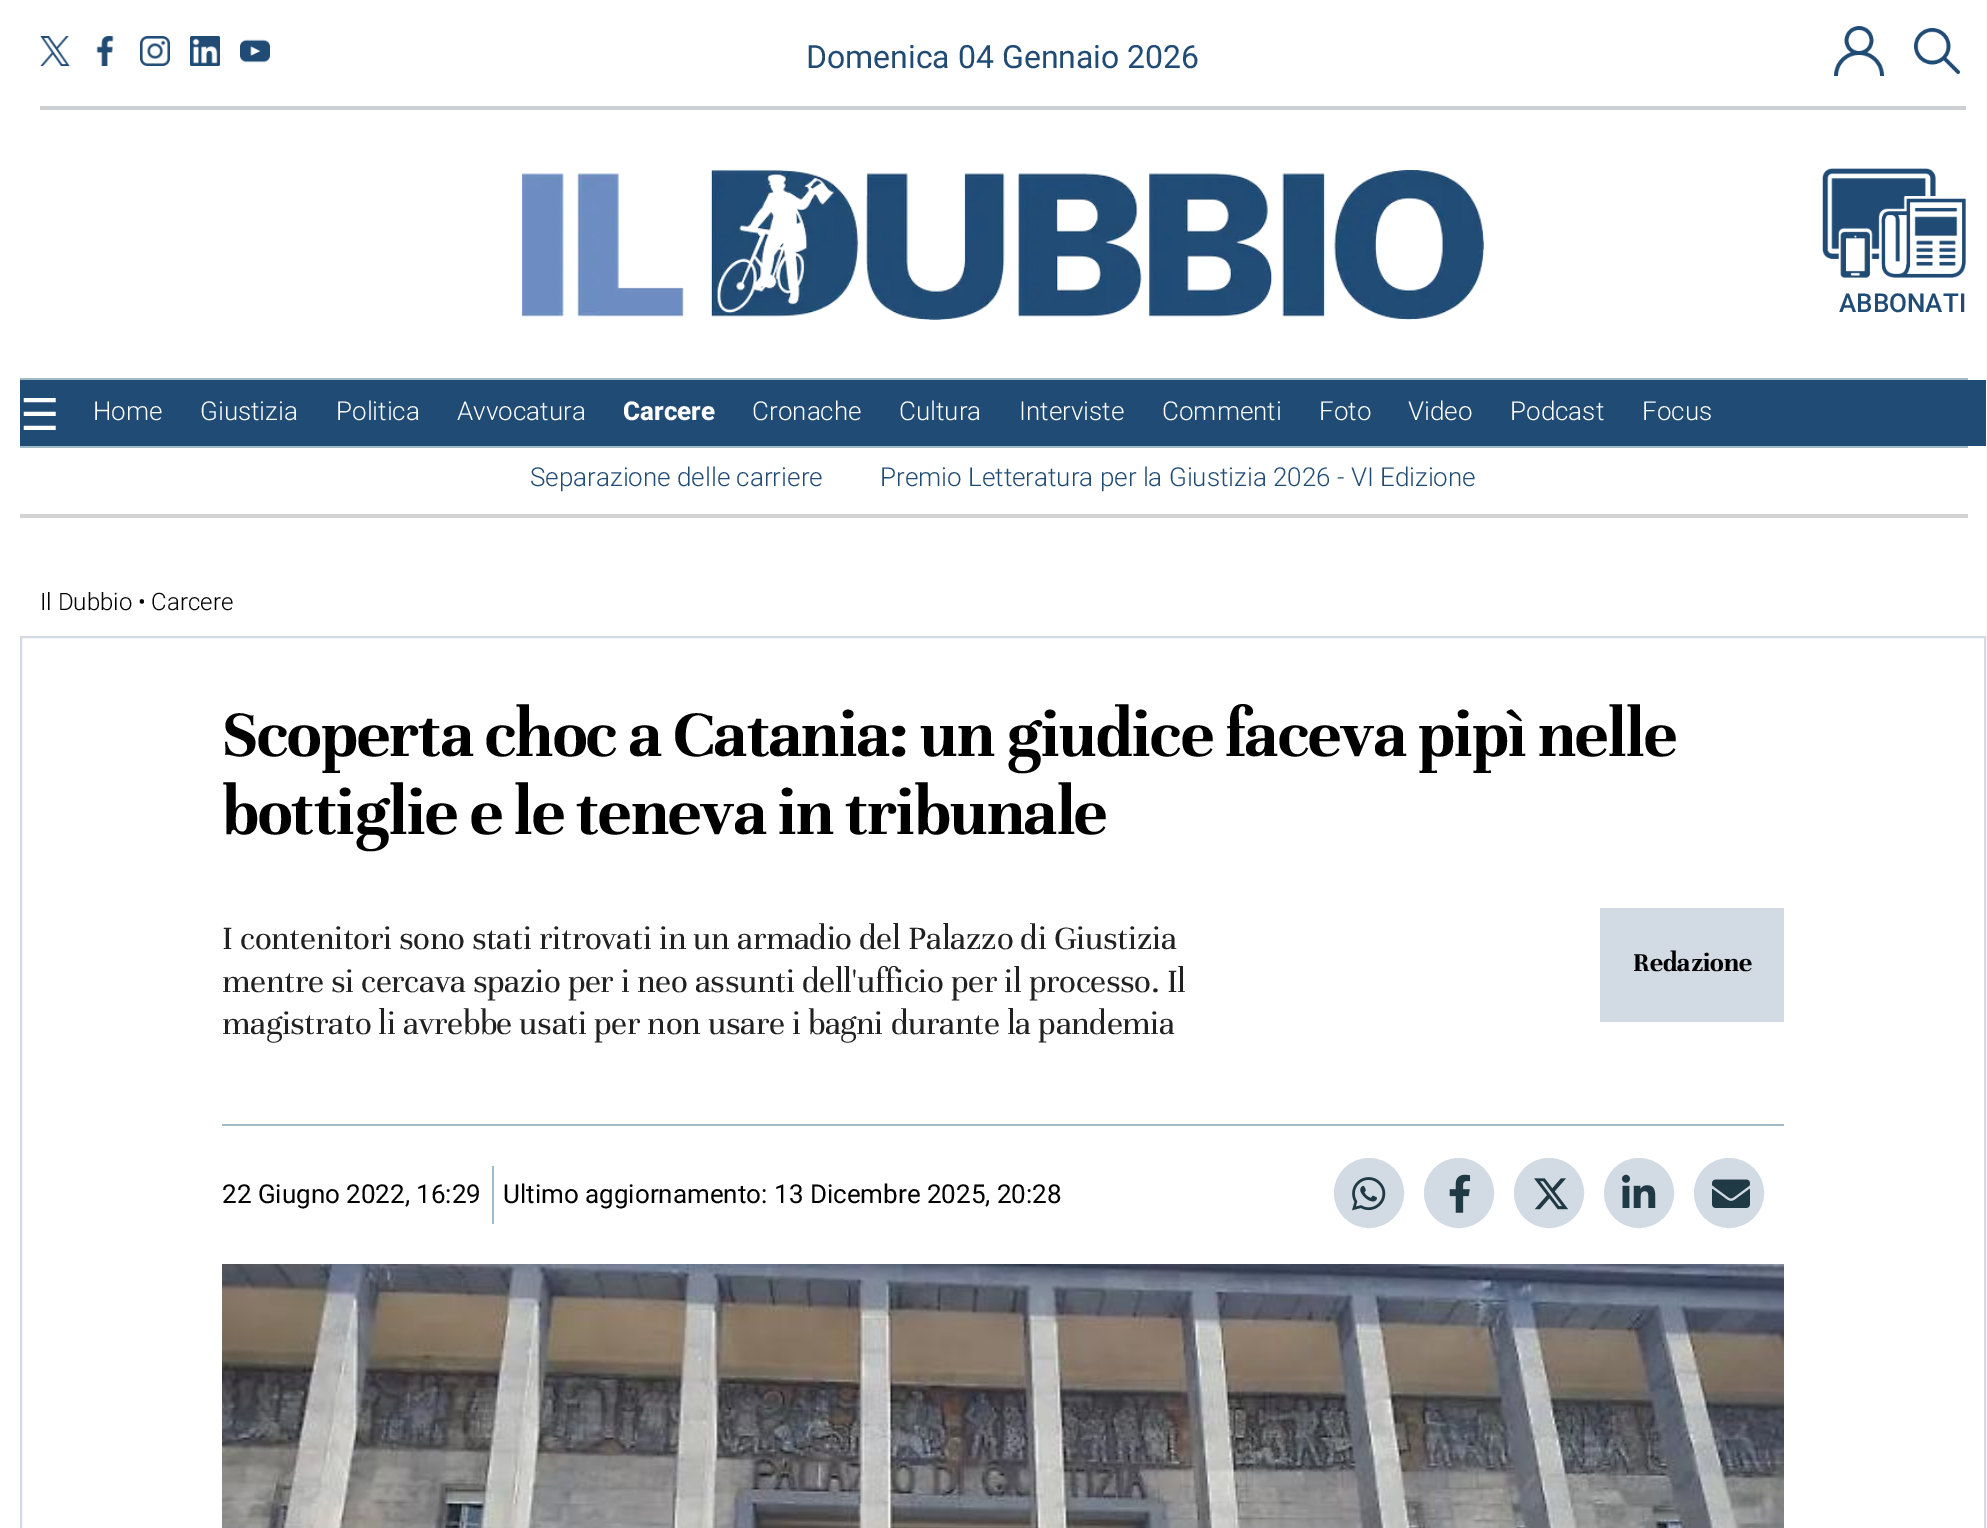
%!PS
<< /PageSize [1987 1528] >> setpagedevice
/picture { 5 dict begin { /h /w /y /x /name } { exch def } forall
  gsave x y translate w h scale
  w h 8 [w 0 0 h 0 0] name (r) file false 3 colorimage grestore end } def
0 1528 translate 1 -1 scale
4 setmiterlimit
1 setgray
0 0 1987 1528 rectfill
0.804 0.812 0.82 setrgbcolor
40 106 1926 4 rectfill
(img1.rgb) 40 36 30 30 picture
(img2.rgb) 96 36 18 30 picture
(img3.rgb) 140 36 30 30 picture
(img4.rgb) 190 36 30 30 picture
(img5.rgb) 240 39 30 24 picture
/Roboto-Regular [32 0 0 -32 0 0] selectfont
0.125 0.294 0.459 setrgbcolor
806 68 moveto (Domenica 04 Gennaio 2026) show
(img6.rgb) 1834 26 50 50 picture
(img7.rgb) 1914 28 46 46 picture
(img8.rgb) 522 170 962 150 picture
(img9.rgb) 1822 168 144 110 picture
/Roboto-Medium [26 0 0 -26 0 0] selectfont
1839 312 moveto (ABBONATI) show
0.627 0.729 0.776 setrgbcolor
20 378 1948 2 rectfill
20 446 1948 2 rectfill
0.125 0.294 0.459 setrgbcolor
20 380 1966 66 rectfill
/DejaVuSans-Regular [44 0 0 -44 0 0] selectfont
1 setgray
20 430 moveto (☰) show
/Roboto-Light [26 0 0 -26 0 0] selectfont
93 420 moveto (Home) show
200 420 moveto (Giustizia) show
336 420 moveto (Politica) show
457 420 moveto (Avvocatura) show
/Roboto-ExtraBold [26 0 0 -26 0 0] selectfont
623 420 moveto (Carcere) show
/Roboto-Light [26 0 0 -26 0 0] selectfont
752 420 moveto (Cronache) show
899 420 moveto (Cultura) show
1019 420 moveto (Interviste) show
1162 420 moveto (Commenti) show
1319 420 moveto (Foto) show
1408 420 moveto (Video) show
1510 420 moveto (Podcast) show
1642 420 moveto (Focus) show
0.827 setgray
20 514 1948 4 rectfill
0.125 0.294 0.459 setrgbcolor
530 486 moveto (Separazione delle carriere) show
880 486 moveto (Premio Letteratura per la Giustizia 2026 - VI Edizione) show
/Roboto-Light [24 0 0 -24 0 0] selectfont
0 setgray
40 610 moveto (Il Dubbio • Carcere) show
0.824 0.859 0.89 setrgbcolor
2 setlinewidth
21 637 1964 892 rectstroke
/Unna-Bold [70.8 0 0 -70.8 0 0] selectfont
0 setgray
222 756 moveto -2 0 32 -0.7 0 (Scoperta choc a Catania: un giudice faceva pipì nelle) awidthshow
222 834 moveto -2 0 32 -0.7 0 (bottiglie e le teneva in tribunale) awidthshow
/Unna-Regular [35.4 0 0 -35.4 0 0] selectfont
0.129 setgray
222 949 moveto -0.35 0 (I contenitori sono stati ritrovati in un armadio del Palazzo di Giustizia) ashow
222 992 moveto -0.35 0 (mentre si cercava spazio per i neo assunti dell'ufficio per il processo. Il) ashow
222 1034 moveto -0.35 0 (magistrato li avrebbe usati per non usare i bagni durante la pandemia) ashow
0.824 0.859 0.89 setrgbcolor
1600 908 184 114 rectfill
/Unna-Bold [28 0 0 -28 0 0] selectfont
0 setgray
1633 971 moveto (Redazione) show
0.627 0.729 0.776 setrgbcolor
222 1124 1562 2 rectfill
/Roboto-Regular [26 0 0 -26 0 0] selectfont
0 setgray
222 1203 moveto (22 Giugno 2022, 16:29) show
0.627 0.729 0.776 setrgbcolor
492 1166 2 58 rectfill
0 setgray
503 1203 moveto (Ultimo aggiornamento: 13 Dicembre 2025, 20:28) show
0.824 0.859 0.89 setrgbcolor
newpath 1369 1193 34 0 360 arc closepath gsave fill grestore
stroke
(img10.rgb) 1352 1177 34 34 picture
newpath 1459 1193 34 0 360 arc closepath gsave fill grestore
stroke
(img11.rgb) 1449 1174 22 39 picture
newpath 1549 1193 34 0 360 arc closepath gsave fill grestore
stroke
(img12.rgb) 1534 1178 34 32 picture
newpath 1639 1193 34 0 360 arc closepath gsave fill grestore
stroke
(img13.rgb) 1622 1174 34 34 picture
newpath 1729 1193 34 0 360 arc closepath gsave fill grestore
stroke
(img14.rgb) 1712 1179 38 29 picture
(img15.rgb) 222 1264 1562 264 picture
showpage
